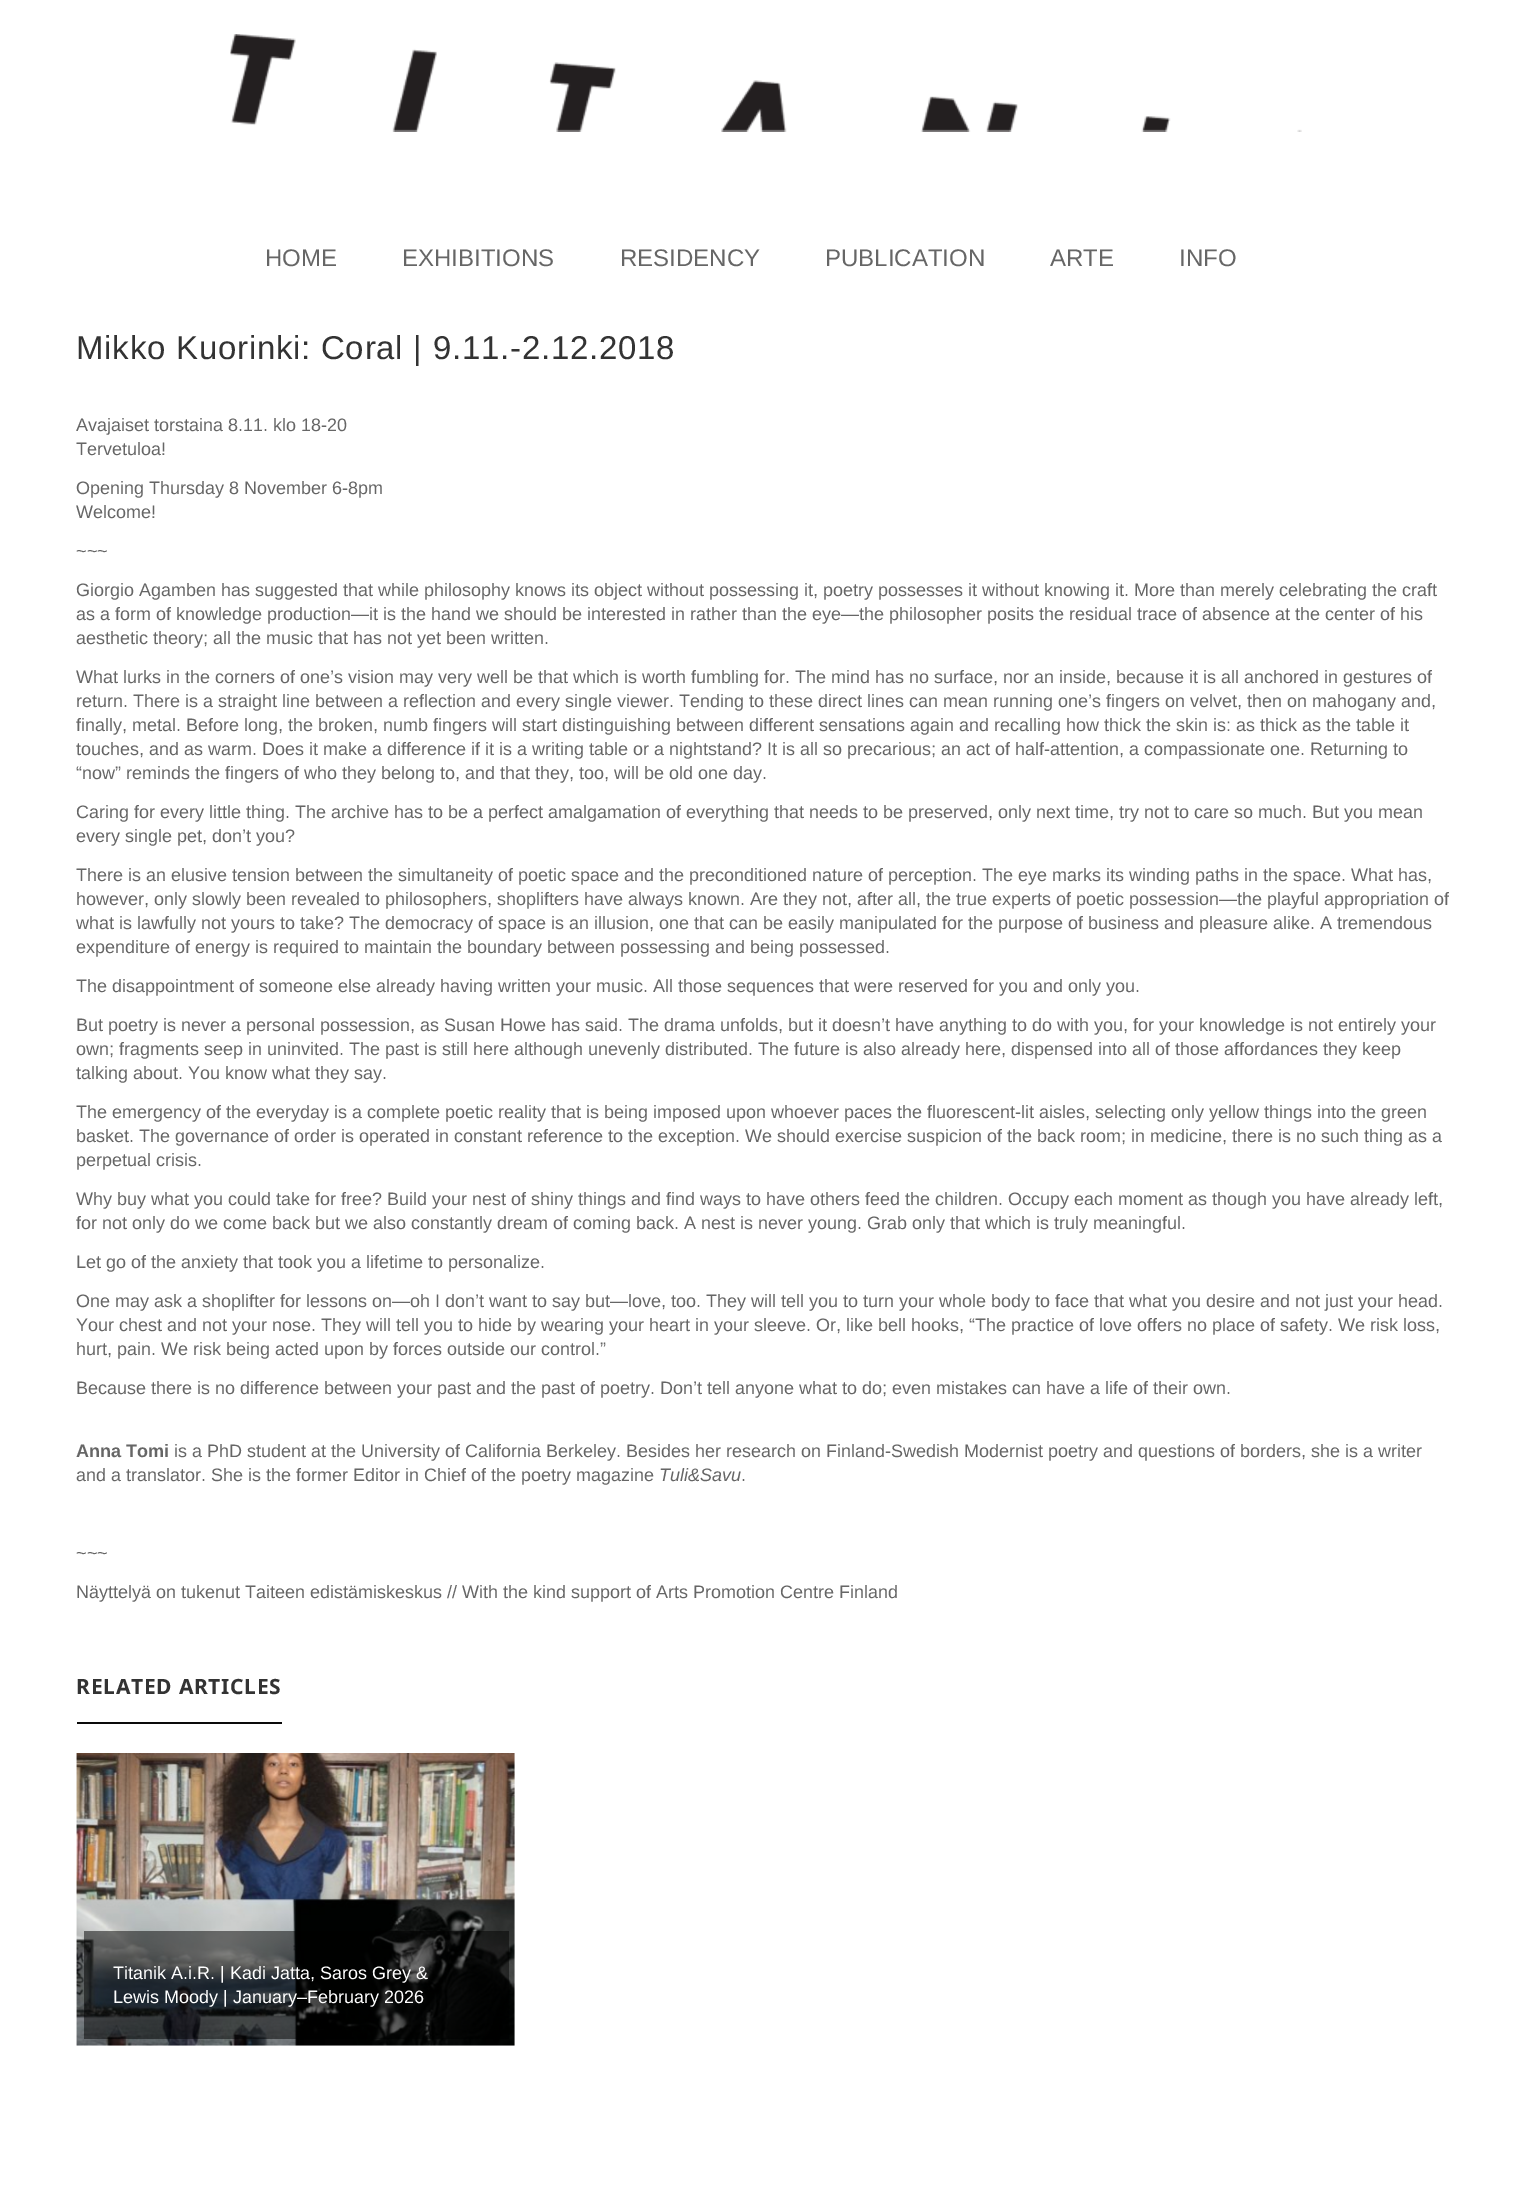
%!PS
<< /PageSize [1531 2200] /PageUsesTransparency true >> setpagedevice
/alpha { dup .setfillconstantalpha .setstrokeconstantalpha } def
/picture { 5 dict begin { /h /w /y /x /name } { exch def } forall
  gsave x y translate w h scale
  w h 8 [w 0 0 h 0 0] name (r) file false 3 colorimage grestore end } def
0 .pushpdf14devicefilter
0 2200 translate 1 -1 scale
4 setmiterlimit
1 setgray
0 0 1531 2200 rectfill
(img1.rgb) 230 34 1072 98 picture
/LiberationSans-Regular [24 0 0 -24 0 0] selectfont
0.4 setgray
265 266 moveto (HOME) show
402 266 moveto (EXHIBITIONS) show
620 266 moveto (RESIDENCY) show
825 266 moveto (PUBLICATION) show
1050 266 moveto (ARTE) show
1179 266 moveto (INFO) show
/LiberationSans-Regular [33 0 0 -33 0 0] selectfont
0.2 setgray
76 359 moveto 0.75 0 (Mikko Kuorinki: Coral | 9.11.-2.12.2018) ashow
/LiberationSans-Regular [18 0 0 -18 0 0] selectfont
0.4 setgray
76 431 moveto (Avajaiset torstaina 8.11. klo 18-20) show
76 455 moveto (Tervetuloa!) show
76 494 moveto (Opening Thursday 8 November 6-8pm) show
76 518 moveto (Welcome!) show
76 557 moveto (~~~) show
76 596 moveto (Giorgio Agamben has suggested that while philosophy knows its object without possessing it, poetry possesses it without knowing it. More than merely celebrating the craft) show
76 620 moveto (as a form of knowledge production—it is the hand we should be interested in rather than the eye—the philosopher posits the residual trace of absence at the center of his) show
76 644 moveto (aesthetic theory; all the music that has not yet been written.) show
76 683 moveto (What lurks in the corners of one’s vision may very well be that which is worth fumbling for. The mind has no surface, nor an inside, because it is all anchored in gestures of) show
76 707 moveto (return. There is a straight line between a reflection and every single viewer. Tending to these direct lines can mean running one’s fingers on velvet, then on mahogany and,) show
76 731 moveto (finally, metal. Before long, the broken, numb fingers will start distinguishing between different sensations again and recalling how thick the skin is: as thick as the table it) show
76 755 moveto (touches, and as warm. Does it make a difference if it is a writing table or a nightstand? It is all so precarious; an act of half-attention, a compassionate one. Returning to) show
76 779 moveto (“now” reminds the fingers of who they belong to, and that they, too, will be old one day.) show
76 818 moveto (Caring for every little thing. The archive has to be a perfect amalgamation of everything that needs to be preserved, only next time, try not to care so much. But you mean) show
76 842 moveto (every single pet, don’t you?) show
76 881 moveto (There is an elusive tension between the simultaneity of poetic space and the preconditioned nature of perception. The eye marks its winding paths in the space. What has,) show
76 905 moveto (however, only slowly been revealed to philosophers, shoplifters have always known. Are they not, after all, the true experts of poetic possession—the playful appropriation of) show
76 929 moveto (what is lawfully not yours to take? The democracy of space is an illusion, one that can be easily manipulated for the purpose of business and pleasure alike. A tremendous) show
76 953 moveto (expenditure of energy is required to maintain the boundary between possessing and being possessed.) show
76 992 moveto (The disappointment of someone else already having written your music. All those sequences that were reserved for you and only you.) show
76 1031 moveto (But poetry is never a personal possession, as Susan Howe has said. The drama unfolds, but it doesn’t have anything to do with you, for your knowledge is not entirely your) show
76 1055 moveto (own; fragments seep in uninvited. The past is still here although unevenly distributed. The future is also already here, dispensed into all of those affordances they keep) show
76 1079 moveto (talking about. You know what they say.) show
76 1118 moveto (The emergency of the everyday is a complete poetic reality that is being imposed upon whoever paces the fluorescent-lit aisles, selecting only yellow things into the green) show
76 1142 moveto (basket. The governance of order is operated in constant reference to the exception. We should exercise suspicion of the back room; in medicine, there is no such thing as a) show
76 1166 moveto (perpetual crisis.) show
76 1205 moveto (Why buy what you could take for free? Build your nest of shiny things and find ways to have others feed the children. Occupy each moment as though you have already left,) show
76 1229 moveto (for not only do we come back but we also constantly dream of coming back. A nest is never young. Grab only that which is truly meaningful.) show
76 1268 moveto (Let go of the anxiety that took you a lifetime to personalize.) show
76 1307 moveto (One may ask a shoplifter for lessons on—oh I don’t want to say but—love, too. They will tell you to turn your whole body to face that what you desire and not just your head.) show
76 1331 moveto (Your chest and not your nose. They will tell you to hide by wearing your heart in your sleeve. Or, like bell hooks, “The practice of love offers no place of safety. We risk loss,) show
76 1355 moveto (hurt, pain. We risk being acted upon by forces outside our control.”) show
76 1394 moveto (Because there is no difference between your past and the past of poetry. Don’t tell anyone what to do; even mistakes can have a life of their own.) show
/LiberationSans-Bold [18 0 0 -18 0 0] selectfont
76 1457 moveto (Anna Tomi) show
/LiberationSans-Regular [18 0 0 -18 0 0] selectfont
174 1457 moveto (is a PhD student at the University of California Berkeley. Besides her research on Finland-Swedish Modernist poetry and questions of borders, she is a writer) show
76 1481 moveto (and a translator. She is the former Editor in Chief of the poetry magazine) show
/LiberationSans-Italic [18 0 0 -18 0 0] selectfont
659 1481 moveto (Tuli&Savu) show
/LiberationSans-Regular [18 0 0 -18 0 0] selectfont
741 1481 moveto (.) show
76 1559 moveto (~~~) show
76 1598 moveto (Näyttelyä on tukenut Taiteen edistämiskeskus // With the kind support of Arts Promotion Centre Finland) show
0.039 setgray
77 1722 205 2 rectfill
/NotoSans-Bold [21 0 0 -21 0 0] selectfont
0.2 setgray
76 1694 moveto 0.75 0 (RELATED ARTICLES) ashow
(img2.rgb) 76 1753 439 293 picture
0.5 alpha
0 setgray
84 1931 425 108 rectfill
/LiberationSans-Regular [18 0 0 -18 0 0] selectfont
1 alpha
1 setgray
113 1979 moveto (Titanik A.i.R. | Kadi Jatta, Saros Grey &) show
113 2003 moveto (Lewis Moody | January–February 2026) show
.poppdf14devicefilter showpage
